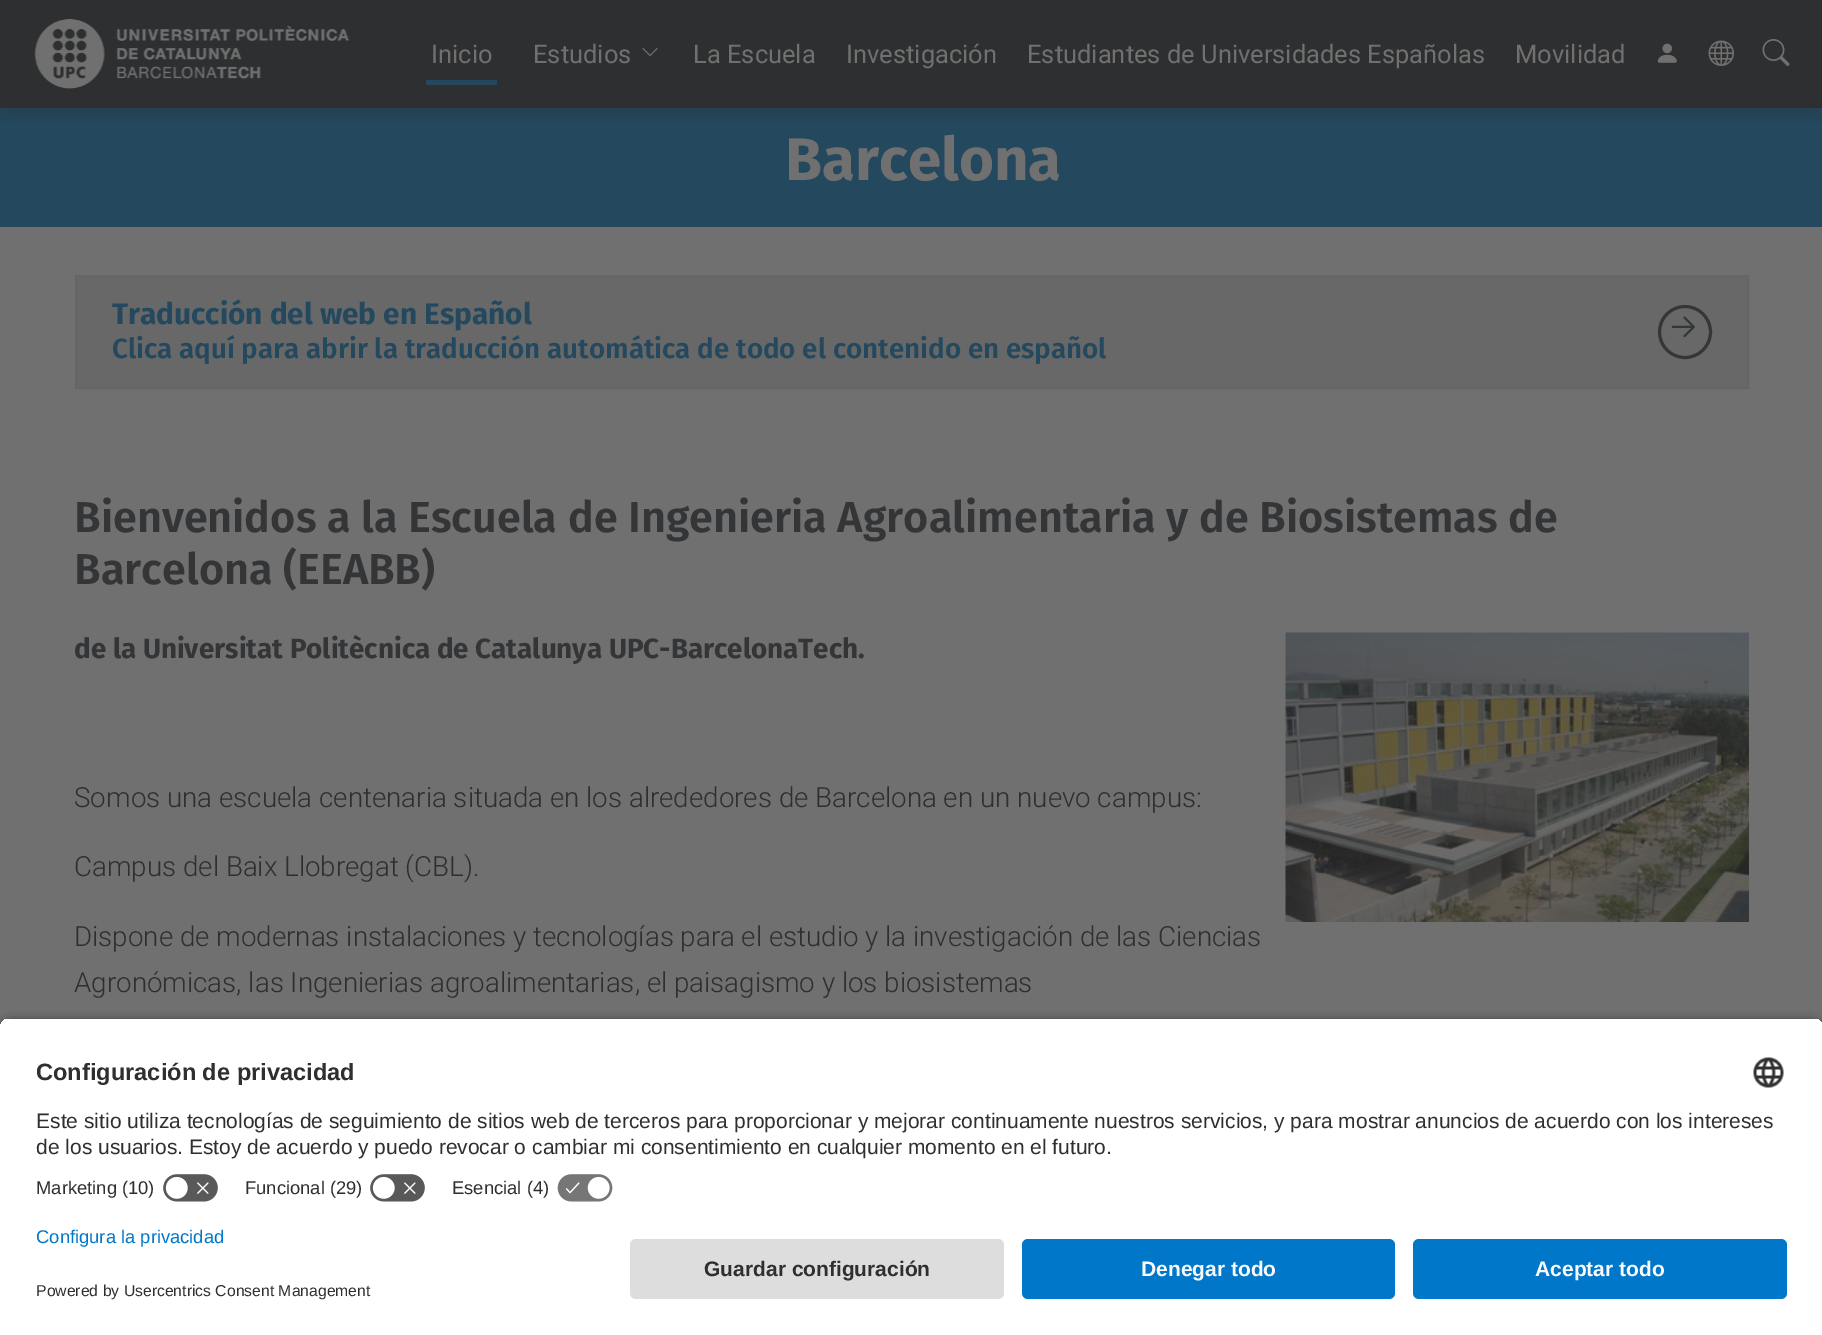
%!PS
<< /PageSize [1822 1335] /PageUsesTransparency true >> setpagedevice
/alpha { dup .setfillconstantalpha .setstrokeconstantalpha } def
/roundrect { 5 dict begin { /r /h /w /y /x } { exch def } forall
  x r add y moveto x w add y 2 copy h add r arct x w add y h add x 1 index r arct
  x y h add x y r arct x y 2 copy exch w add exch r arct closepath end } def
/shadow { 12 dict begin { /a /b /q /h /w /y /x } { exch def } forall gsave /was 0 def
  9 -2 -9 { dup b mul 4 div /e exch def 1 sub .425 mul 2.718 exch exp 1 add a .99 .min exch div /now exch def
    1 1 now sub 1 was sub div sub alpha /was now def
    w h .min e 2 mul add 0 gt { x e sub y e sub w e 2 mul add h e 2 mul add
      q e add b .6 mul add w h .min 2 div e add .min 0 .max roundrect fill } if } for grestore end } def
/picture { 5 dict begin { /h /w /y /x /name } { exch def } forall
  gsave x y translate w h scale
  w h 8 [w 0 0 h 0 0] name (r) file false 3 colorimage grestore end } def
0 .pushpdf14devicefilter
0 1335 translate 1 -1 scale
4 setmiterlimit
0.439 setgray
0 0 1822 1335 rectfill
0.141 0.286 0.369 setrgbcolor
0 108 1822 119 rectfill
0.141 setgray
0 11 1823 108 0 6 0.2 shadow
0.18 0.184 0.188 setrgbcolor
0 0 1822 108 rectfill
(img1.rgb) 34 19 316 70 picture
0.141 0.286 0.369 setrgbcolor
426 80 71 5 rectfill
/Roboto-Regular [25.5 0 0 -25.5 0 0] selectfont
0.439 setgray
431 63 moveto (Inicio) show
533 63 moveto (Estudios) show
(img2.rgb) 642 47 16 10 picture
693 63 moveto (La Escuela) show
846 63 moveto (Investigación) show
1027 63 moveto (Estudiantes de Universidades Españolas) show
1515 63 moveto (Movilidad) show
(img3.rgb) 1657 43 20 20 picture
(img4.rgb) 1708 40 26 26 picture
(img5.rgb) 1762 39 28 27 picture
/FiraSans-Bold [60 0 0 -60 0 0] selectfont
785 180 moveto (Barcelona) show
0.408 setgray
newpath 76 276 moveto 1748 276 lineto 1748 388 lineto 76 388 lineto closepath gsave fill grestore
0.392 0.396 0.396 setrgbcolor
2 setlinewidth
stroke
/FiraSans-Bold [29.75 0 0 -29.75 0 0] selectfont
0.141 0.286 0.369 setrgbcolor
112 324 moveto (Traducción del web en Español) show
0.208 0.212 0.216 setrgbcolor
3 setlinewidth
newpath 1685 332 25.5 0 360 arc closepath stroke
(img6.rgb) 1671 316 24 22 picture
/FiraSans-SemiBold [27.75 0 0 -27.75 0 0] selectfont
0.141 0.286 0.369 setrgbcolor
112 358 moveto (Clica aquí para abrir la traducción automática de todo el contenido en español) show
/FiraSans-SemiBold [43.2 0 0 -43.2 0 0] selectfont
0.2 0.208 0.216 setrgbcolor
74 532 moveto (Bienvenidos a la Escuela de Ingenieria Agroalimentaria y de Biosistemas de) show
74 584 moveto (Barcelona \(EEABB\)) show
/FiraSans-Bold [27.75 0 0 -27.75 0 0] selectfont
74 658 moveto (de la Universitat Politècnica de Catalunya UPC-BarcelonaTech.) show
(img7.rgb) 1285 632 464 290 picture
/Roboto-Light [27.75 0 0 -27.75 0 0] selectfont
0.18 0.184 0.188 setrgbcolor
74 807 moveto (Somos una escuela centenaria situada en los alrededores de Barcelona en un nuevo campus:) show
74 876 moveto (Campus del Baix Llobregat \(CBL\).) show
74 946 moveto (Dispone de modernas instalaciones y tecnologías para el estudio y la investigación de las Ciencias) show
74 992 moveto (Agronómicas, las Ingenierias agroalimentarias, el paisagismo y los biosistemas) show
0 setgray
0 1022 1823 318 12 5 0.8 shadow
gsave
newpath 12 1017 moveto 1811 1017 lineto 1817.5 1017 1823 1022.5 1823 1029 curveto 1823 1227 lineto 0 1227 lineto 0 1029 lineto 0 1022.5 5.5 1017 12 1017 curveto closepath clip newpath
1 setgray
0 1019 1822 208 rectfill
0 1019 1822 148 rectfill
grestore
/LiberationSans-Bold [23.6 0 0 -23.6 0 0] selectfont
0.18 0.184 0.188 setrgbcolor
36 1080 moveto (Configuración de privacidad) show
(img8.rgb) 1753 1057 31 31 picture
/LiberationSans-Regular [21 0 0 -21 0 0] selectfont
36 1128 moveto (Este sitio utiliza tecnologías de seguimiento de sitios web de terceros para proporcionar y mejorar continuamente nuestros servicios, y para mostrar anuncios de acuerdo con los intereses) show
36 1154 moveto (de los usuarios. Estoy de acuerdo y puedo revocar o cambiar mi consentimiento en cualquier momento en el futuro.) show
/LiberationSans-Regular [18.4 0 0 -18.4 0 0] selectfont
36 1194 moveto (Marketing \(10\)) show
(img9.rgb) 163 1174 55 28 picture
245 1194 moveto (Funcional \(29\)) show
(img9.rgb) 370 1174 55 28 picture
452 1194 moveto (Esencial \(4\)) show
(img10.rgb) 557 1174 56 28 picture
1 setgray
0 1227 1822 108 rectfill
0 0.467 0.784 setrgbcolor
36 1243 moveto (Configura la privacidad) show
/LiberationSans-Regular [15.75 0 0 -15.75 0 0] selectfont
0.18 0.184 0.188 setrgbcolor
36 1296 moveto (Powered by Usercentrics Consent Management) show
0.867 setgray
630 1239 374 60 6 roundrect fill
/LiberationSans-Bold [21 0 0 -21 0 0] selectfont
0.18 0.184 0.188 setrgbcolor
704 1276 moveto (Guardar configuración) show
0 0.467 0.784 setrgbcolor
1022 1239 373 60 6 roundrect fill
0.98 setgray
1141 1276 moveto (Denegar todo) show
0 0.467 0.784 setrgbcolor
1413 1239 374 60 6 roundrect fill
0.98 setgray
1535 1276 moveto (Aceptar todo) show
.poppdf14devicefilter showpage
